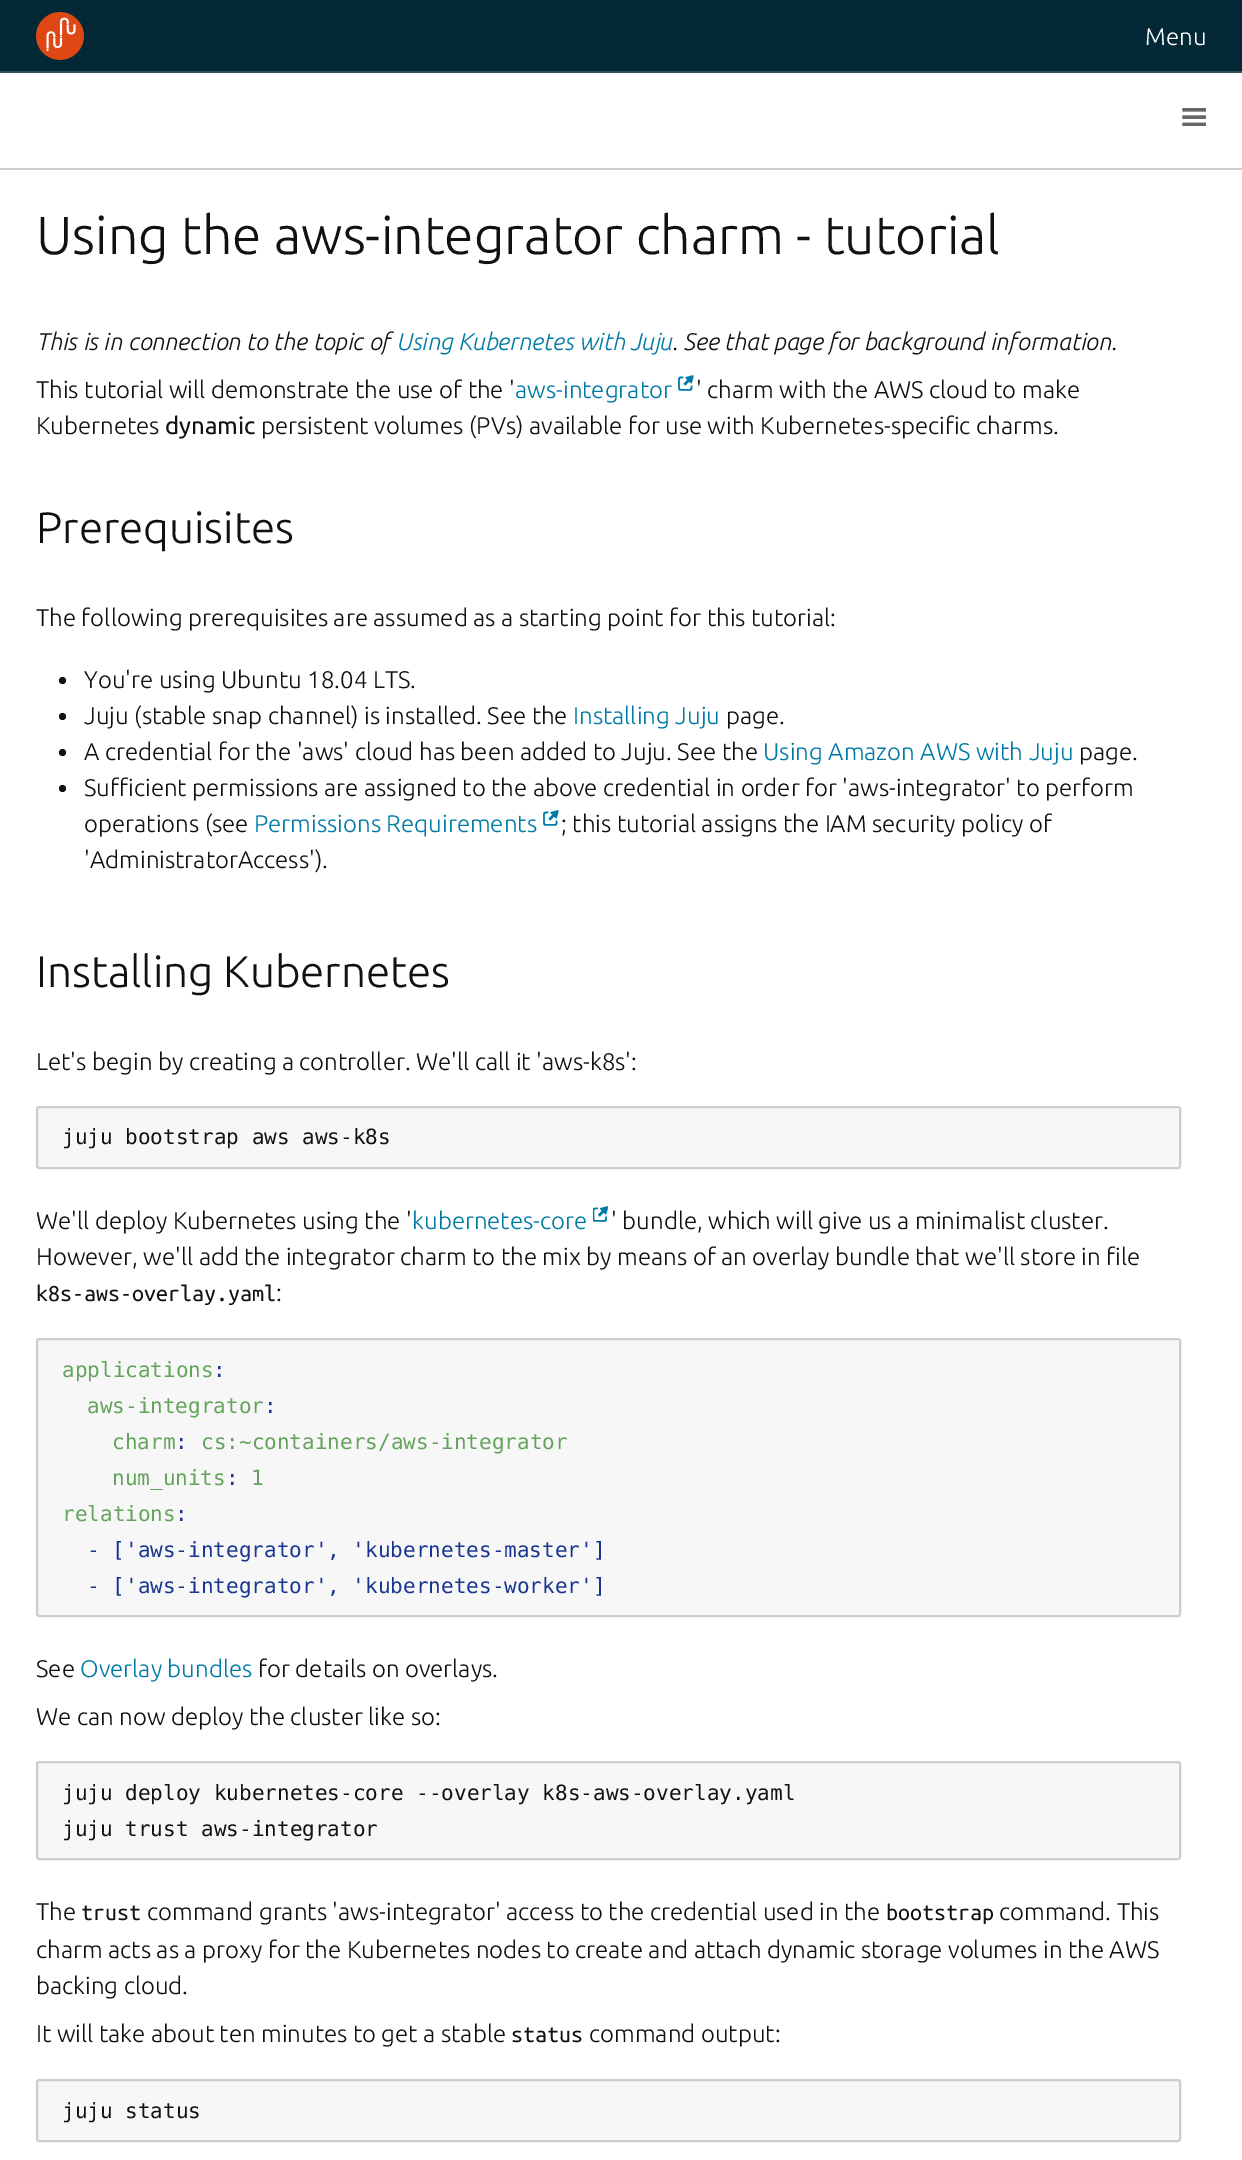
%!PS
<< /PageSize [1242 2160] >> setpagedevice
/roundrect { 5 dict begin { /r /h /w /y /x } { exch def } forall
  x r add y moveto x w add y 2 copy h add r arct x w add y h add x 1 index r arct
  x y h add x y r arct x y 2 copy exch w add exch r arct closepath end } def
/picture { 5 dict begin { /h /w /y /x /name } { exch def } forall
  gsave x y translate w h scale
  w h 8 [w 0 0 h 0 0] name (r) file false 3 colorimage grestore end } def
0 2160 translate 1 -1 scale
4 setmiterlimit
1 setgray
0 0 1242 2160 rectfill
0.008 0.161 0.208 setrgbcolor
0 0 1242 71 rectfill
(img1.rgb) 36 12 48 48 picture
/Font-Light [24 0 0 -24 0 0] selectfont
1 setgray
1145 45 moveto (Menu) show
0.2 0.325 0.365 setrgbcolor
0 71 1242 2 rectfill
0.804 setgray
0 168 1242 2 rectfill
(img2.rgb) 1182 108 24 18 picture
/Font-Light [53.5 0 0 -53.5 0 0] selectfont
0.067 setgray
36 254 moveto (Using the aws-integrator charm - tutorial) show
/Font-LightItalic [24 0 0 -24 0 0] selectfont
36 350 moveto (This is in connection to the topic of) show
0 0.478 0.651 setrgbcolor
396 350 moveto (Using Kubernetes with Juju) show
0.067 setgray
672 350 moveto (. See that page for background information.) show
/Font-Light [24 0 0 -24 0 0] selectfont
36 398 moveto (This tutorial will demonstrate the use of the ') show
0 0.478 0.651 setrgbcolor
515 398 moveto (aws-integrator) show
(img3.rgb) 678 375 16 16 picture
0.067 setgray
696 398 moveto (' charm with the AWS cloud to make) show
36 434 moveto (Kubernetes) show
/Font-Regular [24 0 0 -24 0 0] selectfont
165 434 moveto (dynamic) show
/Font-Light [24 0 0 -24 0 0] selectfont
261 434 moveto (persistent volumes \(PVs\) available for use with Kubernetes-specific charms.) show
/Font-Light [44 0 0 -44 0 0] selectfont
36 543 moveto (Prerequisites) show
/Font-Light [24 0 0 -24 0 0] selectfont
36 626 moveto (The following prerequisites are assumed as a starting point for this tutorial:) show
newpath 62.5 680.5 3.5 0 360 arc closepath fill
84 688 moveto (You're using Ubuntu 18.04 LTS.) show
newpath 62.5 716.5 3.5 0 360 arc closepath fill
84 724 moveto (Juju \(stable snap channel\) is installed. See the) show
0 0.478 0.651 setrgbcolor
573 724 moveto (Installing Juju) show
0.067 setgray
726 724 moveto (page.) show
newpath 62.5 752.5 3.5 0 360 arc closepath fill
84 760 moveto (A credential for the 'aws' cloud has been added to Juju. See the) show
0 0.478 0.651 setrgbcolor
763 760 moveto (Using Amazon AWS with Juju) show
0.067 setgray
1079 760 moveto (page.) show
newpath 62.5 788.5 3.5 0 360 arc closepath fill
84 796 moveto (Sufficient permissions are assigned to the above credential in order for 'aws-integrator' to perform) show
84 832 moveto (operations \(see) show
0 0.478 0.651 setrgbcolor
254 832 moveto (Permissions Requirements) show
(img3.rgb) 543 810 16 16 picture
0.067 setgray
561 832 moveto (; this tutorial assigns the IAM security policy of) show
84 868 moveto ('AdministratorAccess'\).) show
/Font-Light [44 0 0 -44 0 0] selectfont
36 987 moveto (Installing Kubernetes) show
/Font-Light [24 0 0 -24 0 0] selectfont
36 1070 moveto (Let's begin by creating a controller. We'll call it 'aws-k8s':) show
0.969 setgray
37 1107 1143 61 2 roundrect gsave fill grestore
0.804 setgray
2 setlinewidth
stroke
/DejaVuSansMono-Regular [21 0 0 -21 0 0] selectfont
0.067 setgray
62 1144 moveto (juju bootstrap aws aws-k8s) show
/Font-Light [24 0 0 -24 0 0] selectfont
36 1229 moveto (We'll deploy Kubernetes using the ') show
0 0.478 0.651 setrgbcolor
412 1229 moveto (kubernetes-core) show
(img4.rgb) 593 1206 16 16 picture
0.067 setgray
611 1229 moveto (' bundle, which will give us a minimalist cluster.) show
36 1265 moveto (However, we'll add the integrator charm to the mix by means of an overlay bundle that we'll store in file) show
/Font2-Regular [24 0 0 -24 0 0] selectfont
36 1301 moveto (k8s-aws-overlay.yaml) show
/Font-Light [24 0 0 -24 0 0] selectfont
276 1301 moveto (:) show
0.969 setgray
37 1339 1143 277 2 roundrect gsave fill grestore
0.804 setgray
stroke
/DejaVuSansMono-Regular [21 0 0 -21 0 0] selectfont
0.388 0.639 0.361 setrgbcolor
62 1377 moveto (applications) show
0.094 0.212 0.569 setrgbcolor
213 1377 moveto (:) show
0.388 0.639 0.361 setrgbcolor
87 1413 moveto (aws-integrator) show
0.094 0.212 0.569 setrgbcolor
264 1413 moveto (:) show
0.388 0.639 0.361 setrgbcolor
112 1449 moveto (charm) show
0.094 0.212 0.569 setrgbcolor
175 1449 moveto (:) show
0.388 0.639 0.361 setrgbcolor
201 1449 moveto (cs:~containers/aws-integrator) show
112 1485 moveto (num_units) show
0.094 0.212 0.569 setrgbcolor
226 1485 moveto (:) show
0.388 0.639 0.361 setrgbcolor
251 1485 moveto (1) show
62 1521 moveto (relations) show
0.094 0.212 0.569 setrgbcolor
175 1521 moveto (:) show
87 1557 moveto (- ['aws-integrator', 'kubernetes-master']) show
87 1593 moveto (- ['aws-integrator', 'kubernetes-worker']) show
/Font-Light [24 0 0 -24 0 0] selectfont
0.067 setgray
36 1677 moveto (See) show
0 0.478 0.651 setrgbcolor
80 1677 moveto (Overlay bundles) show
0.067 setgray
258 1677 moveto (for details on overlays.) show
36 1725 moveto (We can now deploy the cluster like so:) show
0.969 setgray
37 1762 1143 97 2 roundrect gsave fill grestore
0.804 setgray
stroke
/DejaVuSansMono-Regular [21 0 0 -21 0 0] selectfont
0.067 setgray
62 1800 moveto (juju deploy kubernetes-core --overlay k8s-aws-overlay.yaml) show
62 1836 moveto (juju trust aws-integrator) show
/Font-Light [24 0 0 -24 0 0] selectfont
36 1920 moveto (The) show
/Font2-Regular [24 0 0 -24 0 0] selectfont
81 1920 moveto (trust) show
/Font-Light [24 0 0 -24 0 0] selectfont
147 1920 moveto (command grants 'aws-integrator' access to the credential used in the) show
/Font2-Regular [24 0 0 -24 0 0] selectfont
886 1920 moveto (bootstrap) show
/Font-Light [24 0 0 -24 0 0] selectfont
999 1920 moveto (command. This) show
36 1958 moveto (charm acts as a proxy for the Kubernetes nodes to create and attach dynamic storage volumes in the AWS) show
36 1994 moveto (backing cloud.) show
36 2042 moveto (It will take about ten minutes to get a stable) show
/Font2-Regular [24 0 0 -24 0 0] selectfont
511 2042 moveto (status) show
/Font-Light [24 0 0 -24 0 0] selectfont
589 2042 moveto (command output:) show
0.969 setgray
37 2080 1143 61 2 roundrect gsave fill grestore
0.804 setgray
stroke
/DejaVuSansMono-Regular [21 0 0 -21 0 0] selectfont
0.067 setgray
62 2118 moveto (juju status) show
showpage
